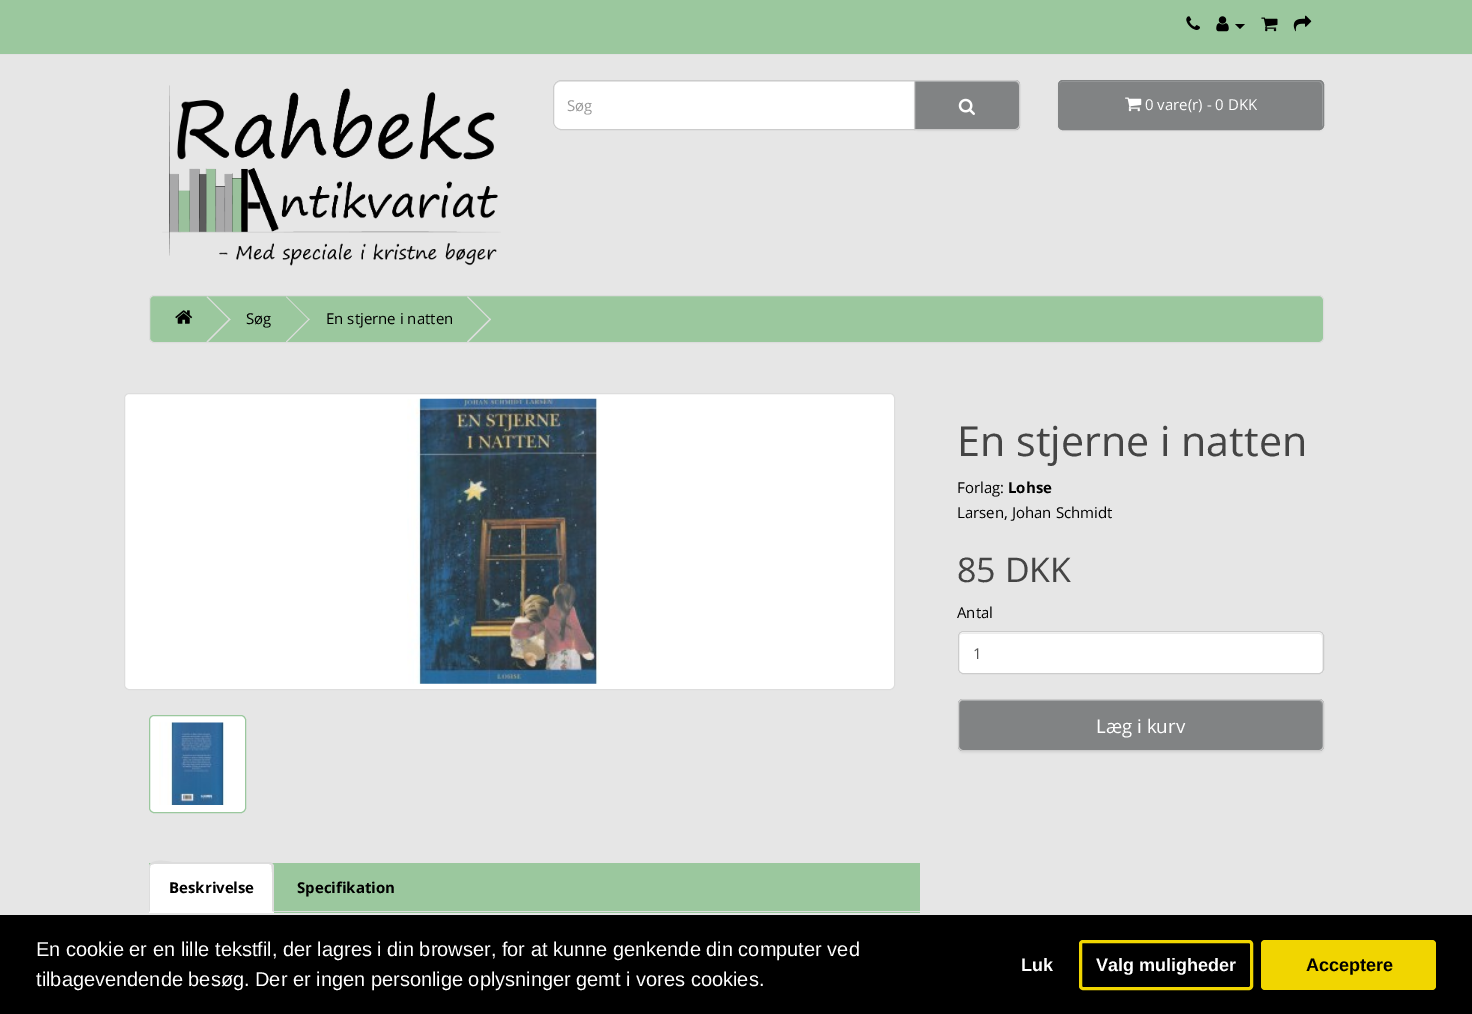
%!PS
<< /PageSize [1472 1014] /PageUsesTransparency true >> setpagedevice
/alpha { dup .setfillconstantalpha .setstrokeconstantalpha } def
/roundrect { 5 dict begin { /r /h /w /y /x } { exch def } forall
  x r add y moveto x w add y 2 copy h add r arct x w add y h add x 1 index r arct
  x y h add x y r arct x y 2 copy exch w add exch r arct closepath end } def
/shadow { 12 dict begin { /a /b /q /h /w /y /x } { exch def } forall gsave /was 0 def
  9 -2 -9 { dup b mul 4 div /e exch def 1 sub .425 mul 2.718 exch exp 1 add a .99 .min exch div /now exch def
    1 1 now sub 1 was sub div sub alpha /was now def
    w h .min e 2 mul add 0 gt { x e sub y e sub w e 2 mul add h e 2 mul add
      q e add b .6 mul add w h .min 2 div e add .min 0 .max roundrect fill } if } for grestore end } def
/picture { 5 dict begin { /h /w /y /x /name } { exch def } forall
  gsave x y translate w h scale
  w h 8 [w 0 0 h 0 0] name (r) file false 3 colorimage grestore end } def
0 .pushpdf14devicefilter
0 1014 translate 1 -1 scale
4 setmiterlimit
0.902 setgray
0 0 1472 1014 rectfill
0.608 0.784 0.62 setrgbcolor
0 0 1472 54 rectfill
0.886 setgray
0 54 1472 1 rectfill
(img1.rgb) 1186 16 14 14 picture
(img2.rgb) 1216 16 13 16 picture
0 setgray
newpath 1235 24 moveto 1245 24 lineto 1240 29 lineto closepath fill
(img3.rgb) 1261 17 17 15 picture
(img4.rgb) 1293 15 19 17 picture
(img5.rgb) 162 85 339 181 picture
1 setgray
newpath 561 80 moveto 915 80 lineto 915 130 lineto 561 130 lineto 556.5 130 553 126.5 553 122 curveto 553 88 lineto 553 83.5 556.5 80 561 80 curveto closepath fill
0.925 setgray
newpath 560 82 moveto 914 82 lineto 914 81 lineto 560 81 lineto 557 81 554 84 554 87 curveto 554 89 lineto 554 85 557 82 560 82 curveto closepath fill
0.8 setgray
newpath 561 80.5 moveto 914.5 80.5 lineto 914.5 129.5 lineto 561 129.5 lineto 557 129.5 553.5 126 553.5 122 curveto 553.5 88 lineto 553.5 84 557 80.5 561 80.5 curveto closepath stroke
/OpenSans-Regular [15 0 0 -15 0 0] selectfont
0.6 setgray
567 111 moveto (Søg) show
0 setgray
914 81 106 50 5 1 0.05 shadow
0.506 0.514 0.518 setrgbcolor
newpath 914 80 moveto 1015 80 lineto 1018 80 1020 82 1020 85 curveto 1020 125 lineto 1020 128 1018 130 1015 130 curveto 914 130 lineto closepath fill
0.604 0.612 0.616 setrgbcolor
newpath 915 82 moveto 1015 82 lineto 1017 82 1019 84 1019 86 curveto 1019 85 lineto 1019 83 1017 81 1015 81 curveto 915 81 lineto closepath fill
0.8 setgray
newpath 914.5 80.5 moveto 1015 80.5 lineto 1017.5 80.5 1019.5 82.5 1019.5 85 curveto 1019.5 125 lineto 1019.5 127.5 1017.5 129.5 1015 129.5 curveto 914.5 129.5 lineto closepath stroke
(img6.rgb) 958 98 17 17 picture
0 setgray
1058 81 266 50 5 1 0.05 shadow
0.506 0.514 0.518 setrgbcolor
1058 80 266 50 5 roundrect fill
0.604 0.612 0.616 setrgbcolor
newpath 1062 82 moveto 1319 82 lineto 1321 82 1322 84 1322 86 curveto 1322 128 lineto 1322 127 1323 126 1323 125 curveto 1323 85 lineto 1323 83 1321 81 1319 81 curveto 1063 81 lineto 1061 81 1059 83 1059 85 curveto 1059 86 lineto 1059 84 1060 82 1062 82 curveto closepath fill
0.506 0.514 0.518 setrgbcolor
1058.5 80.5 265 49 4.5 roundrect stroke
(img7.rgb) 1125 97 17 15 picture
1 setgray
1145 110 moveto (0 vare\(r\) - 0 DKK) show
0.608 0.784 0.62 setrgbcolor
149.5 295.5 1174 47 4.5 roundrect gsave fill grestore
0.867 setgray
stroke
(img8.rgb) 175 310 18 14 picture
newpath 206.5 297 moveto 207.5 296.5 lineto 230.5 319.5 lineto 229.5 320 lineto closepath fill
newpath 206.5 341.5 moveto 229.5 318.5 lineto 230.5 319.5 lineto 207.5 342.5 lineto closepath fill
0 setgray
246 324 moveto (Søg) show
0.867 setgray
newpath 286 297 moveto 286.5 296.5 lineto 309.5 319.5 lineto 309 320 lineto closepath fill
newpath 286 341.5 moveto 309 318.5 lineto 309.5 319.5 lineto 286.5 342.5 lineto closepath fill
0 setgray
326 324 moveto (En stjerne i natten) show
0.867 setgray
newpath 467 297 moveto 468 296.5 lineto 491 319.5 lineto 490 320 lineto closepath fill
newpath 467 341.5 moveto 490 318.5 lineto 491 319.5 lineto 468 342.5 lineto closepath fill
/OpenSans-Regular [41.25 0 0 -41.25 0 0] selectfont
0.267 setgray
957 456 moveto (En stjerne i natten) show
/OpenSans-Regular [15 0 0 -15 0 0] selectfont
0 setgray
957 493 moveto (Forlag:) show
/OpenSans-Bold [15 0 0 -15 0 0] selectfont
1008 493 moveto (Lohse) show
/OpenSans-Regular [15 0 0 -15 0 0] selectfont
957 518 moveto (Larsen, Johan Schmidt) show
/OpenSans-Regular [34 0 0 -34 0 0] selectfont
0.267 setgray
957 582 moveto (85 DKK) show
/OpenSans-Regular [15 0 0 -15 0 0] selectfont
0 setgray
957 618 moveto (Antal) show
1 setgray
958 631 366 43 5 roundrect fill
0.925 setgray
newpath 962 634 moveto 1319 634 lineto 1321 634 1322 635 1322 638 curveto 1322 672 lineto 1322 671 1323 670 1323 669 curveto 1323 637 lineto 1323 635 1321 633 1319 633 curveto 963 633 lineto 961 633 959 635 959 637 curveto 959 638 lineto 959 635 960 634 962 634 curveto closepath fill
0.8 setgray
958.5 631.5 365 42 4.5 roundrect stroke
0.333 setgray
973 659 moveto (1) show
0 setgray
958 700 366 53 5 1 0.05 shadow
0.506 0.514 0.518 setrgbcolor
958 699 366 52 5 roundrect fill
0.604 0.612 0.616 setrgbcolor
newpath 962 701 moveto 1319 701 lineto 1321 701 1322 703 1322 705 curveto 1322 749 lineto 1323 748 1323 747 1323 746 curveto 1323 704 lineto 1323 702 1321 700 1319 700 curveto 963 700 lineto 961 700 959 702 959 704 curveto 959 705 lineto 959 703 960 701 962 701 curveto closepath fill
0.8 setgray
958.5 699.5 365 51 4.5 roundrect stroke
/OpenSans-Regular [18.75 0 0 -18.75 0 0] selectfont
1 setgray
1096 733 moveto (Læg i kurv) show
124.5 393.5 770 296 4.5 roundrect gsave fill grestore
0.867 setgray
stroke
(img9.rgb) 407 398 192 286 picture
1 setgray
149.5 715.5 96 97 4.5 roundrect gsave fill grestore
0.608 0.784 0.62 setrgbcolor
stroke
(img10.rgb) 159 722 68 83 picture
149 863 771 50 rectfill
0.867 setgray
274 911 646 1 rectfill
1 setgray
newpath 154 863 moveto 269 863 lineto 272 863 274 865 274 868 curveto 274 913 lineto 149 913 lineto 149 868 lineto 149 865 151 863 154 863 curveto closepath fill
0.867 setgray
newpath 154 864 moveto 151 865 lineto 150 864 lineto 155 858 171 862 172 862 curveto 271 862 lineto 273 864 lineto 271 865 lineto 269 864 lineto closepath fill
newpath 274 912 moveto 272 911 lineto 272 905 273 867 271 865 curveto 273 864 lineto 274 866 lineto closepath fill
newpath 149 912 moveto 149 868 lineto 149 867 149 865 150 864 curveto 151 865 lineto 150 866 150 867 150 868 curveto 150 911 lineto closepath fill
/OpenSans-Bold [15 0 0 -15 0 0] selectfont
0 setgray
169 893 moveto (Beskrivelse) show
297 893 moveto (Specifikation) show
0 915 1472 99 rectfill
/LiberationSans-Regular [20 0 0 -20 0 0] selectfont
1 setgray
36 956 moveto (En cookie er en lille tekstfil, der lagres i din browser, for at kunne genkende din computer ved) show
36 986 moveto (tilbagevendende besøg. Der er ingen personlige oplysninger gemt i vores cookies.) show
/LiberationSans-Bold [18 0 0 -18 0 0] selectfont
1021 971 moveto (Luk) show
0.945 0.839 0 setrgbcolor
3 setlinewidth
1080.5 941.5 171 47 2.5 roundrect stroke
1 setgray
1096 971 moveto (Valg muligheder) show
0.945 0.839 0 setrgbcolor
1261 940 175 50 4 roundrect fill
0 setgray
1306 971 moveto (Acceptere) show
.poppdf14devicefilter showpage
